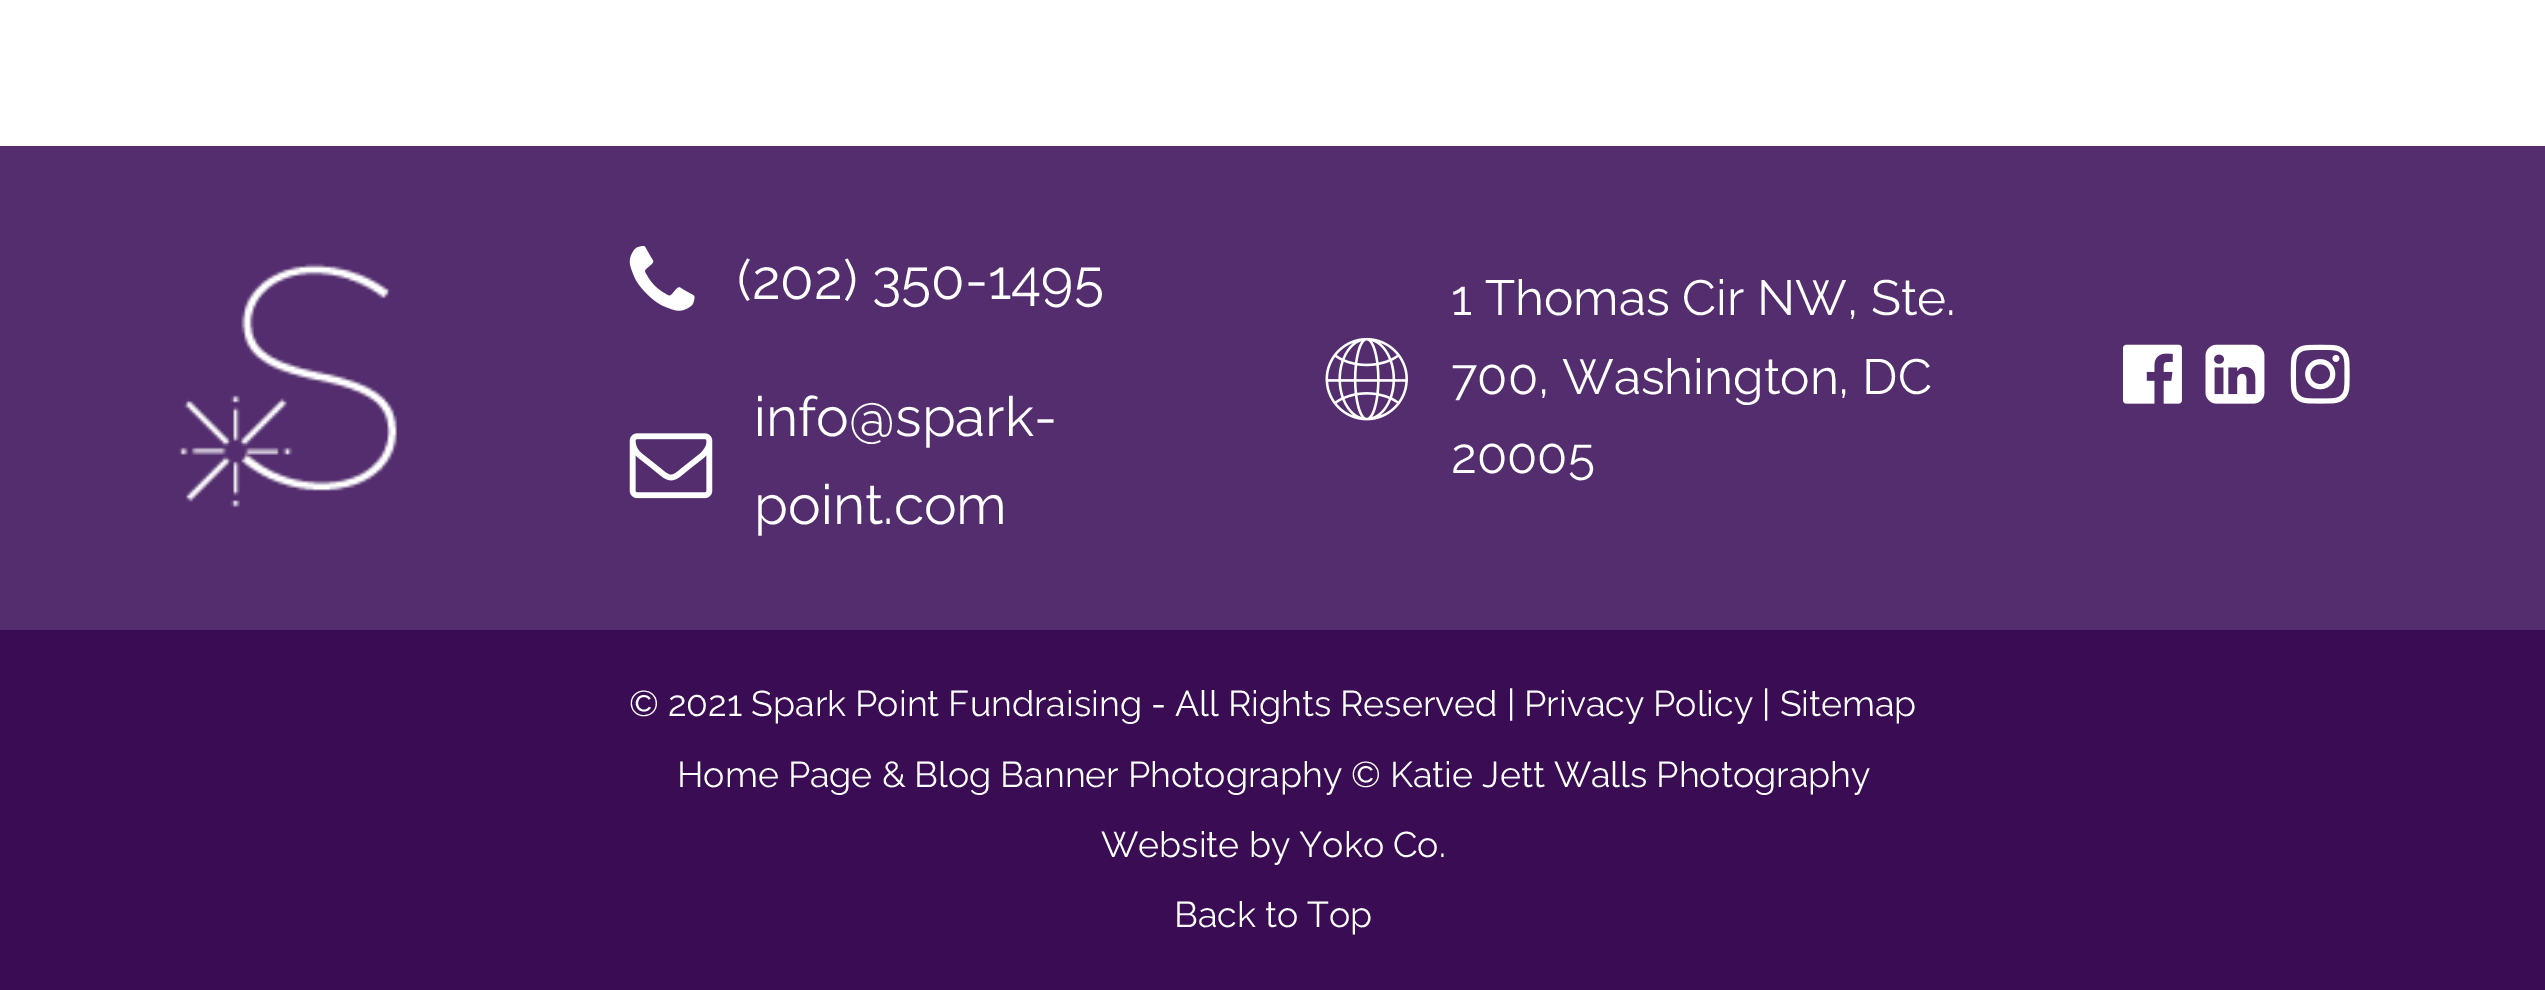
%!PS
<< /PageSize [2545 990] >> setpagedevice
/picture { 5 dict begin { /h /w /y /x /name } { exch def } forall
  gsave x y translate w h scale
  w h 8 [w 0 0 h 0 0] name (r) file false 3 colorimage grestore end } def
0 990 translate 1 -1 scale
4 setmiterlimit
1 setgray
0 0 2545 990 rectfill
0.325 0.176 0.427 setrgbcolor
0 146 2545 484 rectfill
(img1.rgb) 178 263 219 245 picture
(img2.rgb) 629 245 66 66 picture
/Raleway-Regular [55 0 0 -55 0 0] selectfont
1 setgray
737 299 moveto (\(202\) 350-1495) show
(img3.rgb) 629 433 84 66 picture
754 436 moveto (info@spark-) show
754 524 moveto (point.com) show
(img4.rgb) 1325 337 83 84 picture
/Raleway-Regular [49.5 0 0 -49.5 0 0] selectfont
1451 315 moveto (1 Thomas Cir NW, Ste.) show
1451 394 moveto (700, Washington, DC) show
1451 473 moveto (20005) show
(img5.rgb) 2123 344 59 60 picture
(img6.rgb) 2205 344 60 60 picture
(img7.rgb) 2290 344 60 60 picture
0.224 0.047 0.329 setrgbcolor
0 630 2545 360 rectfill
/Raleway-Regular [35.75 0 0 -35.75 0 0] selectfont
1 setgray
629 716 moveto (© 2021 Spark Point Fundraising - All Rights Reserved | Privacy Policy | Sitemap) show
677 787 moveto (Home Page & Blog Banner Photography © Katie Jett Walls Photography) show
1101 857 moveto (Website by Yoko Co.) show
1174 927 moveto (Back to Top) show
showpage
